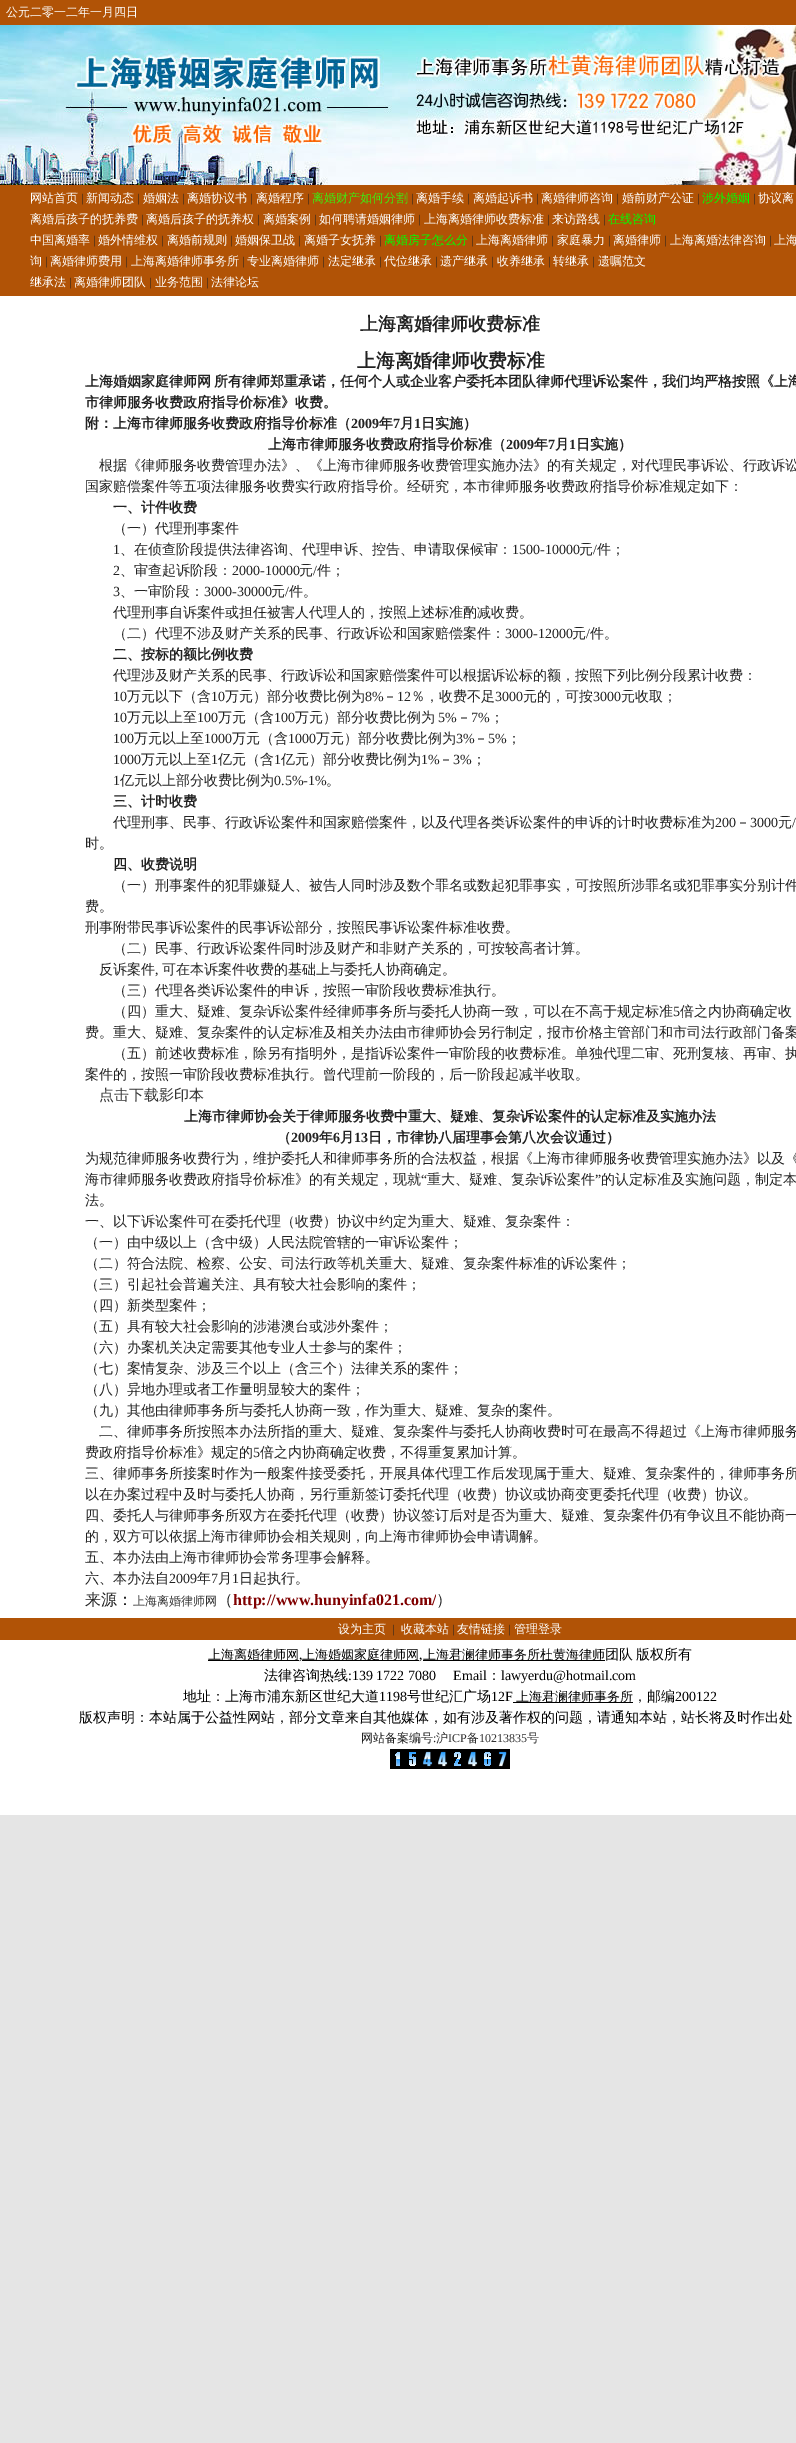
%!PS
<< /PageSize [796 2443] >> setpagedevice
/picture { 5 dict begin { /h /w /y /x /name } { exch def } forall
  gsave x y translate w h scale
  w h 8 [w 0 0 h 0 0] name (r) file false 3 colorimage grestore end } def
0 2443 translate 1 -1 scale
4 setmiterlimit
0.898 setgray
0 0 796 2443 rectfill
0.694 0.325 0.024 setrgbcolor
0 0 796 25 rectfill
/WenQuanYiZenHei-Medium [12 0 0 -12 0 0] selectfont
1 setgray
6 16 moveto (公元二零一二年一月四日) show
(img1.rgb) 0 25 796 160 picture
0.694 0.325 0.024 setrgbcolor
0 185 796 111 rectfill
1 setgray
30 202 moveto (网站首页) show
/LiberationSerif-Regular [12 0 0 -12 0 0] selectfont
0.133 setgray
81 202 moveto (|) show
/WenQuanYiZenHei-Medium [12 0 0 -12 0 0] selectfont
1 setgray
86 202 moveto (新闻动态) show
/LiberationSerif-Regular [12 0 0 -12 0 0] selectfont
0.133 setgray
137 202 moveto (|) show
/WenQuanYiZenHei-Medium [12 0 0 -12 0 0] selectfont
1 setgray
143 202 moveto (婚姻法) show
/LiberationSerif-Regular [12 0 0 -12 0 0] selectfont
0.133 setgray
182 202 moveto (|) show
/WenQuanYiZenHei-Medium [12 0 0 -12 0 0] selectfont
1 setgray
187 202 moveto (离婚协议书) show
/LiberationSerif-Regular [12 0 0 -12 0 0] selectfont
0.133 setgray
250 202 moveto (|) show
/WenQuanYiZenHei-Medium [12 0 0 -12 0 0] selectfont
1 setgray
256 202 moveto (离婚程序) show
/LiberationSerif-Regular [12 0 0 -12 0 0] selectfont
0.133 setgray
307 202 moveto (|) show
/WenQuanYiZenHei-Medium [12 0 0 -12 0 0] selectfont
0.239 0.933 0.067 setrgbcolor
312 202 moveto (离婚财产如何分割) show
/LiberationSerif-Regular [12 0 0 -12 0 0] selectfont
0.133 setgray
411 202 moveto (|) show
/WenQuanYiZenHei-Medium [12 0 0 -12 0 0] selectfont
1 setgray
416 202 moveto (离婚手续) show
/LiberationSerif-Regular [12 0 0 -12 0 0] selectfont
0.133 setgray
467 202 moveto (|) show
/WenQuanYiZenHei-Medium [12 0 0 -12 0 0] selectfont
1 setgray
473 202 moveto (离婚起诉书) show
/LiberationSerif-Regular [12 0 0 -12 0 0] selectfont
0.133 setgray
536 202 moveto (|) show
/WenQuanYiZenHei-Medium [12 0 0 -12 0 0] selectfont
1 setgray
541 202 moveto (离婚律师咨询) show
/LiberationSerif-Regular [12 0 0 -12 0 0] selectfont
0.133 setgray
616 202 moveto (|) show
/WenQuanYiZenHei-Medium [12 0 0 -12 0 0] selectfont
1 setgray
622 202 moveto (婚前财产公证) show
/LiberationSerif-Regular [12 0 0 -12 0 0] selectfont
0.133 setgray
697 202 moveto (|) show
/WenQuanYiZenHei-Medium [12 0 0 -12 0 0] selectfont
0 1 0 setrgbcolor
702 202 moveto (涉外婚姻) show
/LiberationSerif-Regular [12 0 0 -12 0 0] selectfont
0.133 setgray
753 202 moveto (|) show
/WenQuanYiZenHei-Medium [12 0 0 -12 0 0] selectfont
1 setgray
758 202 moveto (协议离) show
30 223 moveto (离婚后孩子的抚养费) show
/LiberationSerif-Regular [12 0 0 -12 0 0] selectfont
0.133 setgray
141 223 moveto (|) show
/WenQuanYiZenHei-Medium [12 0 0 -12 0 0] selectfont
1 setgray
146 223 moveto (离婚后孩子的抚养权) show
/LiberationSerif-Regular [12 0 0 -12 0 0] selectfont
0.133 setgray
257 223 moveto (|) show
/WenQuanYiZenHei-Medium [12 0 0 -12 0 0] selectfont
1 setgray
263 223 moveto (离婚案例) show
/LiberationSerif-Regular [12 0 0 -12 0 0] selectfont
0.133 setgray
314 223 moveto (|) show
/WenQuanYiZenHei-Medium [12 0 0 -12 0 0] selectfont
1 setgray
319 223 moveto (如何聘请婚姻律师) show
/LiberationSerif-Regular [12 0 0 -12 0 0] selectfont
0.133 setgray
418 223 moveto (|) show
/WenQuanYiZenHei-Medium [12 0 0 -12 0 0] selectfont
1 setgray
424 223 moveto (上海离婚律师收费标准) show
/LiberationSerif-Regular [12 0 0 -12 0 0] selectfont
0.133 setgray
547 223 moveto (|) show
/WenQuanYiZenHei-Medium [12 0 0 -12 0 0] selectfont
1 setgray
552 223 moveto (来访路线) show
/LiberationSerif-Regular [12 0 0 -12 0 0] selectfont
0.133 setgray
603 223 moveto (|) show
/WenQuanYiZenHei-Medium [12 0 0 -12 0 0] selectfont
0 1 0 setrgbcolor
608 223 moveto (在线咨询) show
1 setgray
30 244 moveto (中国离婚率) show
/LiberationSerif-Regular [12 0 0 -12 0 0] selectfont
0.133 setgray
93 244 moveto (|) show
/WenQuanYiZenHei-Medium [12 0 0 -12 0 0] selectfont
1 setgray
98 244 moveto (婚外情维权) show
/LiberationSerif-Regular [12 0 0 -12 0 0] selectfont
0.133 setgray
161 244 moveto (|) show
/WenQuanYiZenHei-Medium [12 0 0 -12 0 0] selectfont
1 setgray
167 244 moveto (离婚前规则) show
/LiberationSerif-Regular [12 0 0 -12 0 0] selectfont
0.133 setgray
230 244 moveto (|) show
/WenQuanYiZenHei-Medium [12 0 0 -12 0 0] selectfont
1 setgray
235 244 moveto (婚姻保卫战) show
/LiberationSerif-Regular [12 0 0 -12 0 0] selectfont
0.133 setgray
298 244 moveto (|) show
/WenQuanYiZenHei-Medium [12 0 0 -12 0 0] selectfont
1 setgray
304 244 moveto (离婚子女抚养) show
/LiberationSerif-Regular [12 0 0 -12 0 0] selectfont
0.133 setgray
379 244 moveto (|) show
/WenQuanYiZenHei-Medium [12 0 0 -12 0 0] selectfont
0 1 0 setrgbcolor
384 244 moveto (离婚房子怎么分) show
/LiberationSerif-Regular [12 0 0 -12 0 0] selectfont
0.133 setgray
471 244 moveto (|) show
/WenQuanYiZenHei-Medium [12 0 0 -12 0 0] selectfont
1 setgray
476 244 moveto (上海离婚律师) show
/LiberationSerif-Regular [12 0 0 -12 0 0] selectfont
0.133 setgray
551 244 moveto (|) show
/WenQuanYiZenHei-Medium [12 0 0 -12 0 0] selectfont
1 setgray
557 244 moveto (家庭暴力) show
/LiberationSerif-Regular [12 0 0 -12 0 0] selectfont
0.133 setgray
608 244 moveto (|) show
/WenQuanYiZenHei-Medium [12 0 0 -12 0 0] selectfont
1 setgray
613 244 moveto (离婚律师) show
/LiberationSerif-Regular [12 0 0 -12 0 0] selectfont
0.133 setgray
664 244 moveto (|) show
/WenQuanYiZenHei-Medium [12 0 0 -12 0 0] selectfont
1 setgray
670 244 moveto (上海离婚法律咨询) show
/LiberationSerif-Regular [12 0 0 -12 0 0] selectfont
0.133 setgray
769 244 moveto (|) show
/WenQuanYiZenHei-Medium [12 0 0 -12 0 0] selectfont
1 setgray
774 244 moveto (上海) show
30 265 moveto (询) show
/LiberationSerif-Regular [12 0 0 -12 0 0] selectfont
0.133 setgray
45 265 moveto (|) show
/WenQuanYiZenHei-Medium [12 0 0 -12 0 0] selectfont
1 setgray
50 265 moveto (离婚律师费用) show
/LiberationSerif-Regular [12 0 0 -12 0 0] selectfont
0.133 setgray
125 265 moveto (|) show
/WenQuanYiZenHei-Medium [12 0 0 -12 0 0] selectfont
1 setgray
131 265 moveto (上海离婚律师事务所) show
/LiberationSerif-Regular [12 0 0 -12 0 0] selectfont
0.133 setgray
242 265 moveto (|) show
/WenQuanYiZenHei-Medium [12 0 0 -12 0 0] selectfont
1 setgray
247 265 moveto (专业离婚律师) show
/LiberationSerif-Regular [12 0 0 -12 0 0] selectfont
0.133 setgray
322 265 moveto (|) show
/WenQuanYiZenHei-Medium [12 0 0 -12 0 0] selectfont
1 setgray
328 265 moveto (法定继承) show
/LiberationSerif-Regular [12 0 0 -12 0 0] selectfont
0.133 setgray
379 265 moveto (|) show
/WenQuanYiZenHei-Medium [12 0 0 -12 0 0] selectfont
1 setgray
384 265 moveto (代位继承) show
/LiberationSerif-Regular [12 0 0 -12 0 0] selectfont
0.133 setgray
435 265 moveto (|) show
/WenQuanYiZenHei-Medium [12 0 0 -12 0 0] selectfont
1 setgray
440 265 moveto (遗产继承) show
/LiberationSerif-Regular [12 0 0 -12 0 0] selectfont
0.133 setgray
491 265 moveto (|) show
/WenQuanYiZenHei-Medium [12 0 0 -12 0 0] selectfont
1 setgray
497 265 moveto (收养继承) show
/LiberationSerif-Regular [12 0 0 -12 0 0] selectfont
0.133 setgray
548 265 moveto (|) show
/WenQuanYiZenHei-Medium [12 0 0 -12 0 0] selectfont
1 setgray
553 265 moveto (转继承) show
/LiberationSerif-Regular [12 0 0 -12 0 0] selectfont
0.133 setgray
592 265 moveto (|) show
/WenQuanYiZenHei-Medium [12 0 0 -12 0 0] selectfont
1 setgray
598 265 moveto (遗嘱范文) show
30 286 moveto (继承法) show
/LiberationSerif-Regular [12 0 0 -12 0 0] selectfont
0.133 setgray
69 286 moveto (|) show
/WenQuanYiZenHei-Medium [12 0 0 -12 0 0] selectfont
1 setgray
74 286 moveto (离婚律师团队) show
/LiberationSerif-Regular [12 0 0 -12 0 0] selectfont
0.133 setgray
149 286 moveto (|) show
/WenQuanYiZenHei-Medium [12 0 0 -12 0 0] selectfont
1 setgray
155 286 moveto (业务范围) show
/LiberationSerif-Regular [12 0 0 -12 0 0] selectfont
0.133 setgray
206 286 moveto (|) show
/WenQuanYiZenHei-Medium [12 0 0 -12 0 0] selectfont
1 setgray
211 286 moveto (法律论坛) show
0 296 796 1322 rectfill
/WenQuanYiZenHei-Bold [18 0 0 -18 0 0] selectfont
0.133 setgray
360 330 moveto (上海离婚律师收费标准) show
/WenQuanYiZenHei-Bold [18.75 0 0 -18.75 0 0] selectfont
357 367 moveto (上海离婚律师收费标准) show
/WenQuanYiZenHei-Bold [14 0 0 -14 0 0] selectfont
85 386 moveto (上海婚姻家庭律师网) show
214 386 moveto (所有律师郑重承诺，任何个人或企业客户委托本团队律师代理诉讼案件，我们均严格按照《上海) show
85 407 moveto (市律师服务收费政府指导价标准》收费。) show
85 428 moveto (附：上海市律师服务收费政府指导价标准（) show
/LiberationSerif-Bold [14 0 0 -14 0 0] selectfont
351 428 moveto (2009) show
/WenQuanYiZenHei-Bold [14 0 0 -14 0 0] selectfont
379 428 moveto (年) show
/LiberationSerif-Bold [14 0 0 -14 0 0] selectfont
393 428 moveto (7) show
/WenQuanYiZenHei-Bold [14 0 0 -14 0 0] selectfont
400 428 moveto (月) show
/LiberationSerif-Bold [14 0 0 -14 0 0] selectfont
414 428 moveto (1) show
/WenQuanYiZenHei-Bold [14 0 0 -14 0 0] selectfont
421 428 moveto (日实施）) show
268 449 moveto (上海市律师服务收费政府指导价标准（) show
/LiberationSerif-Bold [14 0 0 -14 0 0] selectfont
506 449 moveto (2009) show
/WenQuanYiZenHei-Bold [14 0 0 -14 0 0] selectfont
534 449 moveto (年) show
/LiberationSerif-Bold [14 0 0 -14 0 0] selectfont
548 449 moveto (7) show
/WenQuanYiZenHei-Bold [14 0 0 -14 0 0] selectfont
555 449 moveto (月) show
/LiberationSerif-Bold [14 0 0 -14 0 0] selectfont
569 449 moveto (1) show
/WenQuanYiZenHei-Bold [14 0 0 -14 0 0] selectfont
576 449 moveto (日实施）) show
/WenQuanYiZenHei-Medium [14 0 0 -14 0 0] selectfont
99 470 moveto (根据《律师服务收费管理办法》、《上海市律师服务收费管理实施办法》的有关规定，对代理民事诉讼、行政诉讼) show
85 491 moveto (国家赔偿案件等五项法律服务收费实行政府指导价。经研究，本市律师服务收费政府指导价标准规定如下：) show
/WenQuanYiZenHei-Bold [14 0 0 -14 0 0] selectfont
113 512 moveto (一、计件收费) show
/WenQuanYiZenHei-Medium [14 0 0 -14 0 0] selectfont
113 533 moveto (（一）代理刑事案件) show
/LiberationSerif-Regular [14 0 0 -14 0 0] selectfont
113 554 moveto (1) show
/WenQuanYiZenHei-Medium [14 0 0 -14 0 0] selectfont
120 554 moveto (、在侦查阶段提供法律咨询、代理申诉、控告、申请取保候审：) show
/LiberationSerif-Regular [14 0 0 -14 0 0] selectfont
512 554 moveto (1500-10000) show
/WenQuanYiZenHei-Medium [14 0 0 -14 0 0] selectfont
579 554 moveto (元) show
/LiberationSerif-Regular [14 0 0 -14 0 0] selectfont
593 554 moveto (/) show
/WenQuanYiZenHei-Medium [14 0 0 -14 0 0] selectfont
597 554 moveto (件；) show
/LiberationSerif-Regular [14 0 0 -14 0 0] selectfont
113 575 moveto (2) show
/WenQuanYiZenHei-Medium [14 0 0 -14 0 0] selectfont
120 575 moveto (、审查起诉阶段：) show
/LiberationSerif-Regular [14 0 0 -14 0 0] selectfont
232 575 moveto (2000-10000) show
/WenQuanYiZenHei-Medium [14 0 0 -14 0 0] selectfont
299 575 moveto (元) show
/LiberationSerif-Regular [14 0 0 -14 0 0] selectfont
313 575 moveto (/) show
/WenQuanYiZenHei-Medium [14 0 0 -14 0 0] selectfont
317 575 moveto (件；) show
/LiberationSerif-Regular [14 0 0 -14 0 0] selectfont
113 596 moveto (3) show
/WenQuanYiZenHei-Medium [14 0 0 -14 0 0] selectfont
120 596 moveto (、一审阶段：) show
/LiberationSerif-Regular [14 0 0 -14 0 0] selectfont
204 596 moveto (3000-30000) show
/WenQuanYiZenHei-Medium [14 0 0 -14 0 0] selectfont
271 596 moveto (元) show
/LiberationSerif-Regular [14 0 0 -14 0 0] selectfont
285 596 moveto (/) show
/WenQuanYiZenHei-Medium [14 0 0 -14 0 0] selectfont
289 596 moveto (件。) show
113 617 moveto (代理刑事自诉案件或担任被害人代理人的，按照上述标准酌减收费。) show
113 638 moveto (（二）代理不涉及财产关系的民事、行政诉讼和国家赔偿案件：) show
/LiberationSerif-Regular [14 0 0 -14 0 0] selectfont
505 638 moveto (3000-12000) show
/WenQuanYiZenHei-Medium [14 0 0 -14 0 0] selectfont
572 638 moveto (元) show
/LiberationSerif-Regular [14 0 0 -14 0 0] selectfont
586 638 moveto (/) show
/WenQuanYiZenHei-Medium [14 0 0 -14 0 0] selectfont
590 638 moveto (件。) show
/WenQuanYiZenHei-Bold [14 0 0 -14 0 0] selectfont
113 659 moveto (二、按标的额比例收费) show
/WenQuanYiZenHei-Medium [14 0 0 -14 0 0] selectfont
113 680 moveto (代理涉及财产关系的民事、行政诉讼和国家赔偿案件可以根据诉讼标的额，按照下列比例分段累计收费：) show
/LiberationSerif-Regular [14 0 0 -14 0 0] selectfont
113 701 moveto (10) show
/WenQuanYiZenHei-Medium [14 0 0 -14 0 0] selectfont
127 701 moveto (万元以下（含) show
/LiberationSerif-Regular [14 0 0 -14 0 0] selectfont
211 701 moveto (10) show
/WenQuanYiZenHei-Medium [14 0 0 -14 0 0] selectfont
225 701 moveto (万元）部分收费比例为) show
/LiberationSerif-Regular [14 0 0 -14 0 0] selectfont
365 701 moveto (8%) show
/WenQuanYiZenHei-Medium [14 0 0 -14 0 0] selectfont
383 701 moveto (－) show
/LiberationSerif-Regular [14 0 0 -14 0 0] selectfont
397 701 moveto (12) show
/WenQuanYiZenHei-Medium [14 0 0 -14 0 0] selectfont
411 701 moveto (％，收费不足) show
/LiberationSerif-Regular [14 0 0 -14 0 0] selectfont
495 701 moveto (3000) show
/WenQuanYiZenHei-Medium [14 0 0 -14 0 0] selectfont
523 701 moveto (元的，可按) show
/LiberationSerif-Regular [14 0 0 -14 0 0] selectfont
593 701 moveto (3000) show
/WenQuanYiZenHei-Medium [14 0 0 -14 0 0] selectfont
621 701 moveto (元收取；) show
/LiberationSerif-Regular [14 0 0 -14 0 0] selectfont
113 722 moveto (10) show
/WenQuanYiZenHei-Medium [14 0 0 -14 0 0] selectfont
127 722 moveto (万元以上至) show
/LiberationSerif-Regular [14 0 0 -14 0 0] selectfont
197 722 moveto (100) show
/WenQuanYiZenHei-Medium [14 0 0 -14 0 0] selectfont
218 722 moveto (万元（含) show
/LiberationSerif-Regular [14 0 0 -14 0 0] selectfont
274 722 moveto (100) show
/WenQuanYiZenHei-Medium [14 0 0 -14 0 0] selectfont
295 722 moveto (万元）部分收费比例为) show
/LiberationSerif-Regular [14 0 0 -14 0 0] selectfont
438 722 moveto (5%) show
/WenQuanYiZenHei-Medium [14 0 0 -14 0 0] selectfont
457 722 moveto (－) show
/LiberationSerif-Regular [14 0 0 -14 0 0] selectfont
471 722 moveto (7%) show
/WenQuanYiZenHei-Medium [14 0 0 -14 0 0] selectfont
490 722 moveto (；) show
/LiberationSerif-Regular [14 0 0 -14 0 0] selectfont
113 743 moveto (100) show
/WenQuanYiZenHei-Medium [14 0 0 -14 0 0] selectfont
134 743 moveto (万元以上至) show
/LiberationSerif-Regular [14 0 0 -14 0 0] selectfont
204 743 moveto (1000) show
/WenQuanYiZenHei-Medium [14 0 0 -14 0 0] selectfont
232 743 moveto (万元（含) show
/LiberationSerif-Regular [14 0 0 -14 0 0] selectfont
288 743 moveto (1000) show
/WenQuanYiZenHei-Medium [14 0 0 -14 0 0] selectfont
316 743 moveto (万元）部分收费比例为) show
/LiberationSerif-Regular [14 0 0 -14 0 0] selectfont
456 743 moveto (3%) show
/WenQuanYiZenHei-Medium [14 0 0 -14 0 0] selectfont
474 743 moveto (－) show
/LiberationSerif-Regular [14 0 0 -14 0 0] selectfont
488 743 moveto (5%) show
/WenQuanYiZenHei-Medium [14 0 0 -14 0 0] selectfont
507 743 moveto (；) show
/LiberationSerif-Regular [14 0 0 -14 0 0] selectfont
113 764 moveto (1000) show
/WenQuanYiZenHei-Medium [14 0 0 -14 0 0] selectfont
141 764 moveto (万元以上至) show
/LiberationSerif-Regular [14 0 0 -14 0 0] selectfont
211 764 moveto (1) show
/WenQuanYiZenHei-Medium [14 0 0 -14 0 0] selectfont
218 764 moveto (亿元（含) show
/LiberationSerif-Regular [14 0 0 -14 0 0] selectfont
274 764 moveto (1) show
/WenQuanYiZenHei-Medium [14 0 0 -14 0 0] selectfont
281 764 moveto (亿元）部分收费比例为) show
/LiberationSerif-Regular [14 0 0 -14 0 0] selectfont
421 764 moveto (1%) show
/WenQuanYiZenHei-Medium [14 0 0 -14 0 0] selectfont
439 764 moveto (－) show
/LiberationSerif-Regular [14 0 0 -14 0 0] selectfont
453 764 moveto (3%) show
/WenQuanYiZenHei-Medium [14 0 0 -14 0 0] selectfont
472 764 moveto (；) show
/LiberationSerif-Regular [14 0 0 -14 0 0] selectfont
113 785 moveto (1) show
/WenQuanYiZenHei-Medium [14 0 0 -14 0 0] selectfont
120 785 moveto (亿元以上部分收费比例为) show
/LiberationSerif-Regular [14 0 0 -14 0 0] selectfont
274 785 moveto (0.5%-1%) show
/WenQuanYiZenHei-Medium [14 0 0 -14 0 0] selectfont
326 785 moveto (。) show
/WenQuanYiZenHei-Bold [14 0 0 -14 0 0] selectfont
113 806 moveto (三、计时收费) show
/WenQuanYiZenHei-Medium [14 0 0 -14 0 0] selectfont
113 827 moveto (代理刑事、民事、行政诉讼案件和国家赔偿案件，以及代理各类诉讼案件的申诉的计时收费标准为) show
/LiberationSerif-Regular [14 0 0 -14 0 0] selectfont
715 827 moveto (200) show
/WenQuanYiZenHei-Medium [14 0 0 -14 0 0] selectfont
736 827 moveto (－) show
/LiberationSerif-Regular [14 0 0 -14 0 0] selectfont
750 827 moveto (3000) show
/WenQuanYiZenHei-Medium [14 0 0 -14 0 0] selectfont
778 827 moveto (元) show
/LiberationSerif-Regular [14 0 0 -14 0 0] selectfont
792 827 moveto (/) show
/WenQuanYiZenHei-Medium [14 0 0 -14 0 0] selectfont
85 848 moveto (时。) show
/WenQuanYiZenHei-Bold [14 0 0 -14 0 0] selectfont
113 869 moveto (四、收费说明) show
/WenQuanYiZenHei-Medium [14 0 0 -14 0 0] selectfont
113 890 moveto (（一）刑事案件的犯罪嫌疑人、被告人同时涉及数个罪名或数起犯罪事实，可按照所涉罪名或犯罪事实分别计件) show
85 911 moveto (费。) show
85 932 moveto (刑事附带民事诉讼案件的民事诉讼部分，按照民事诉讼案件标准收费。) show
113 953 moveto (（二）民事、行政诉讼案件同时涉及财产和非财产关系的，可按较高者计算。) show
99 974 moveto (反诉案件) show
/LiberationSerif-Regular [14 0 0 -14 0 0] selectfont
155 974 moveto (,) show
/WenQuanYiZenHei-Medium [14 0 0 -14 0 0] selectfont
162 974 moveto (可在本诉案件收费的基础上与委托人协商确定。) show
113 995 moveto (（三）代理各类诉讼案件的申诉，按照一审阶段收费标准执行。) show
113 1016 moveto (（四）重大、疑难、复杂诉讼案件经律师事务所与委托人协商一致，可以在不高于规定标准) show
/LiberationSerif-Regular [14 0 0 -14 0 0] selectfont
673 1016 moveto (5) show
/WenQuanYiZenHei-Medium [14 0 0 -14 0 0] selectfont
680 1016 moveto (倍之内协商确定收) show
85 1037 moveto (费。重大、疑难、复杂案件的认定标准及相关办法由市律师协会另行制定，报市价格主管部门和市司法行政部门备案) show
113 1058 moveto (（五）前述收费标准，除另有指明外，是指诉讼案件一审阶段的收费标准。单独代理二审、死刑复核、再审、执) show
85 1079 moveto (案件的，按照一审阶段收费标准执行。曾代理前一阶段的，后一阶段起减半收取。) show
/WenQuanYiZenHei-Medium [15 0 0 -15 0 0] selectfont
0.2 setgray
99 1100 moveto (点击下载影印本) show
/WenQuanYiZenHei-Bold [14 0 0 -14 0 0] selectfont
0.133 setgray
184 1121 moveto (上海市律师协会关于律师服务收费中重大、疑难、复杂诉讼案件的认定标准及实施办法) show
277 1142 moveto (（) show
/LiberationSerif-Bold [14 0 0 -14 0 0] selectfont
291 1142 moveto (2009) show
/WenQuanYiZenHei-Bold [14 0 0 -14 0 0] selectfont
319 1142 moveto (年) show
/LiberationSerif-Bold [14 0 0 -14 0 0] selectfont
333 1142 moveto (6) show
/WenQuanYiZenHei-Bold [14 0 0 -14 0 0] selectfont
340 1142 moveto (月) show
/LiberationSerif-Bold [14 0 0 -14 0 0] selectfont
354 1142 moveto (13) show
/WenQuanYiZenHei-Bold [14 0 0 -14 0 0] selectfont
368 1142 moveto (日，市律协八届理事会第八次会议通过）) show
/WenQuanYiZenHei-Medium [14 0 0 -14 0 0] selectfont
85 1163 moveto (为规范律师服务收费行为，维护委托人和律师事务所的合法权益，根据《上海市律师服务收费管理实施办法》以及《) show
85 1184 moveto (海市律师服务收费政府指导价标准》的有关规定，现就) show
/LiberationSerif-Regular [14 0 0 -14 0 0] selectfont
421 1184 moveto (“) show
/WenQuanYiZenHei-Medium [14 0 0 -14 0 0] selectfont
427 1184 moveto (重大、疑难、复杂诉讼案件) show
/LiberationSerif-Regular [14 0 0 -14 0 0] selectfont
595 1184 moveto (”) show
/WenQuanYiZenHei-Medium [14 0 0 -14 0 0] selectfont
601 1184 moveto (的认定标准及实施问题，制定本) show
85 1205 moveto (法。) show
85 1226 moveto (一、以下诉讼案件可在委托代理（收费）协议中约定为重大、疑难、复杂案件：) show
85 1247 moveto (（一）由中级以上（含中级）人民法院管辖的一审诉讼案件；) show
85 1268 moveto (（二）符合法院、检察、公安、司法行政等机关重大、疑难、复杂案件标准的诉讼案件；) show
85 1289 moveto (（三）引起社会普遍关注、具有较大社会影响的案件；) show
85 1310 moveto (（四）新类型案件；) show
85 1331 moveto (（五）具有较大社会影响的涉港澳台或涉外案件；) show
85 1352 moveto (（六）办案机关决定需要其他专业人士参与的案件；) show
85 1373 moveto (（七）案情复杂、涉及三个以上（含三个）法律关系的案件；) show
85 1394 moveto (（八）异地办理或者工作量明显较大的案件；) show
85 1415 moveto (（九）其他由律师事务所与委托人协商一致，作为重大、疑难、复杂的案件。) show
99 1436 moveto (二、律师事务所按照本办法所指的重大、疑难、复杂案件与委托人协商收费时可在最高不得超过《上海市律师服务) show
85 1457 moveto (费政府指导价标准》规定的) show
/LiberationSerif-Regular [14 0 0 -14 0 0] selectfont
253 1457 moveto (5) show
/WenQuanYiZenHei-Medium [14 0 0 -14 0 0] selectfont
260 1457 moveto (倍之内协商确定收费，不得重复累加计算。) show
85 1478 moveto (三、律师事务所接案时作为一般案件接受委托，开展具体代理工作后发现属于重大、疑难、复杂案件的，律师事务所) show
85 1499 moveto (以在办案过程中及时与委托人协商，另行重新签订委托代理（收费）协议或协商变更委托代理（收费）协议。) show
85 1520 moveto (四、委托人与律师事务所双方在委托代理（收费）协议签订后对是否为重大、疑难、复杂案件仍有争议且不能协商一) show
85 1541 moveto (的，双方可以依据上海市律师协会相关规则，向上海市律师协会申请调解。) show
85 1562 moveto (五、本办法由上海市律师协会常务理事会解释。) show
85 1583 moveto (六、本办法自) show
/LiberationSerif-Regular [14 0 0 -14 0 0] selectfont
169 1583 moveto (2009) show
/WenQuanYiZenHei-Medium [14 0 0 -14 0 0] selectfont
197 1583 moveto (年) show
/LiberationSerif-Regular [14 0 0 -14 0 0] selectfont
211 1583 moveto (7) show
/WenQuanYiZenHei-Medium [14 0 0 -14 0 0] selectfont
218 1583 moveto (月) show
/LiberationSerif-Regular [14 0 0 -14 0 0] selectfont
232 1583 moveto (1) show
/WenQuanYiZenHei-Medium [14 0 0 -14 0 0] selectfont
239 1583 moveto (日起执行。) show
/WenQuanYiZenHei-Medium [16 0 0 -16 0 0] selectfont
85 1605 moveto (来源：) show
/WenQuanYiZenHei-Medium [12 0 0 -12 0 0] selectfont
0.2 setgray
133 1605 moveto (上海离婚律师网) show
/WenQuanYiZenHei-Medium [16 0 0 -16 0 0] selectfont
0.133 setgray
217 1605 moveto (（) show
/LiberationSerif-Bold [16 0 0 -16 0 0] selectfont
0.502 0 0 setrgbcolor
233 1605 moveto (http://www.hunyinfa021.com/) show
/WenQuanYiZenHei-Medium [16 0 0 -16 0 0] selectfont
0.133 setgray
436 1605 moveto (）) show
1 setgray
436 1594 1 2 rectfill
0.694 0.325 0.024 setrgbcolor
0 1618 796 22 rectfill
/WenQuanYiZenHei-Medium [12 0 0 -12 0 0] selectfont
1 setgray
338 1633 moveto (设为主页) show
/LiberationSerif-Regular [12 0 0 -12 0 0] selectfont
0.133 setgray
392 1633 moveto (|) show
/WenQuanYiZenHei-Medium [12 0 0 -12 0 0] selectfont
1 setgray
401 1633 moveto (收藏本站) show
/LiberationSerif-Regular [12 0 0 -12 0 0] selectfont
0.133 setgray
452 1633 moveto (|) show
/WenQuanYiZenHei-Medium [12 0 0 -12 0 0] selectfont
1 setgray
457 1633 moveto (友情链接) show
/LiberationSerif-Regular [12 0 0 -12 0 0] selectfont
0.133 setgray
508 1633 moveto (|) show
/WenQuanYiZenHei-Medium [12 0 0 -12 0 0] selectfont
1 setgray
514 1633 moveto (管理登录) show
0 1640 796 175 rectfill
0 setgray
208 1660 91 1 rectfill
/WenQuanYiZenHei-Medium [13 0 0 -13 0 0] selectfont
208 1659 moveto (上海离婚律师网) show
/LiberationSerif-Regular [14 0 0 -14 0 0] selectfont
299 1659 moveto (,) show
302 1660 117 1 rectfill
/WenQuanYiZenHei-Medium [13 0 0 -13 0 0] selectfont
302 1659 moveto (上海婚姻家庭律师网) show
/LiberationSerif-Regular [14 0 0 -14 0 0] selectfont
419 1659 moveto (,) show
423 1660 182 1 rectfill
/WenQuanYiZenHei-Medium [13 0 0 -13 0 0] selectfont
423 1659 moveto (上海君澜律师事务所杜黄海律师) show
/WenQuanYiZenHei-Medium [14 0 0 -14 0 0] selectfont
605 1659 moveto (团队) show
636 1659 moveto (版权所有) show
264 1680 moveto (法律咨询热线) show
/LiberationSerif-Regular [14 0 0 -14 0 0] selectfont
348 1680 moveto (:139 1722 7080     Email) show
/WenQuanYiZenHei-Medium [14 0 0 -14 0 0] selectfont
487 1680 moveto (：) show
/LiberationSerif-Regular [14 0 0 -14 0 0] selectfont
501 1680 moveto (lawyerdu@hotmail.com) show
/WenQuanYiZenHei-Medium [14 0 0 -14 0 0] selectfont
183 1701 moveto (地址：上海市浦东新区世纪大道) show
/LiberationSerif-Regular [14 0 0 -14 0 0] selectfont
379 1701 moveto (1198) show
/WenQuanYiZenHei-Medium [14 0 0 -14 0 0] selectfont
407 1701 moveto (号世纪汇广场) show
/LiberationSerif-Regular [14 0 0 -14 0 0] selectfont
491 1701 moveto (12F) show
513 1702 120 1 rectfill
/WenQuanYiZenHei-Medium [13 0 0 -13 0 0] selectfont
516 1701 moveto (上海君澜律师事务所) show
/WenQuanYiZenHei-Medium [14 0 0 -14 0 0] selectfont
633 1701 moveto (，邮编) show
/LiberationSerif-Regular [14 0 0 -14 0 0] selectfont
675 1701 moveto (200122) show
/WenQuanYiZenHei-Medium [14 0 0 -14 0 0] selectfont
79 1722 moveto (版权声明：本站属于公益性网站，部分文章来自其他媒体，如有涉及著作权的问题，请通知本站，站长将及时作出处) show
/WenQuanYiZenHei-Medium [12 0 0 -12 0 0] selectfont
0.133 setgray
361 1742 moveto (网站备案编号) show
/LiberationSerif-Regular [12 0 0 -12 0 0] selectfont
433 1742 moveto (:) show
/WenQuanYiZenHei-Medium [12 0 0 -12 0 0] selectfont
0.2 setgray
436 1742 moveto (沪) show
/LiberationSerif-Regular [12 0 0 -12 0 0] selectfont
448 1742 moveto (ICP) show
/WenQuanYiZenHei-Medium [12 0 0 -12 0 0] selectfont
467 1742 moveto (备) show
/LiberationSerif-Regular [12 0 0 -12 0 0] selectfont
479 1742 moveto (10213835) show
/WenQuanYiZenHei-Medium [12 0 0 -12 0 0] selectfont
527 1742 moveto (号) show
(img2.rgb) 390 1749 15 20 picture
(img3.rgb) 405 1749 15 20 picture
(img4.rgb) 420 1749 15 20 picture
(img5.rgb) 435 1749 15 20 picture
(img6.rgb) 450 1749 15 20 picture
(img5.rgb) 465 1749 15 20 picture
(img7.rgb) 480 1749 15 20 picture
(img8.rgb) 495 1749 15 20 picture
showpage
